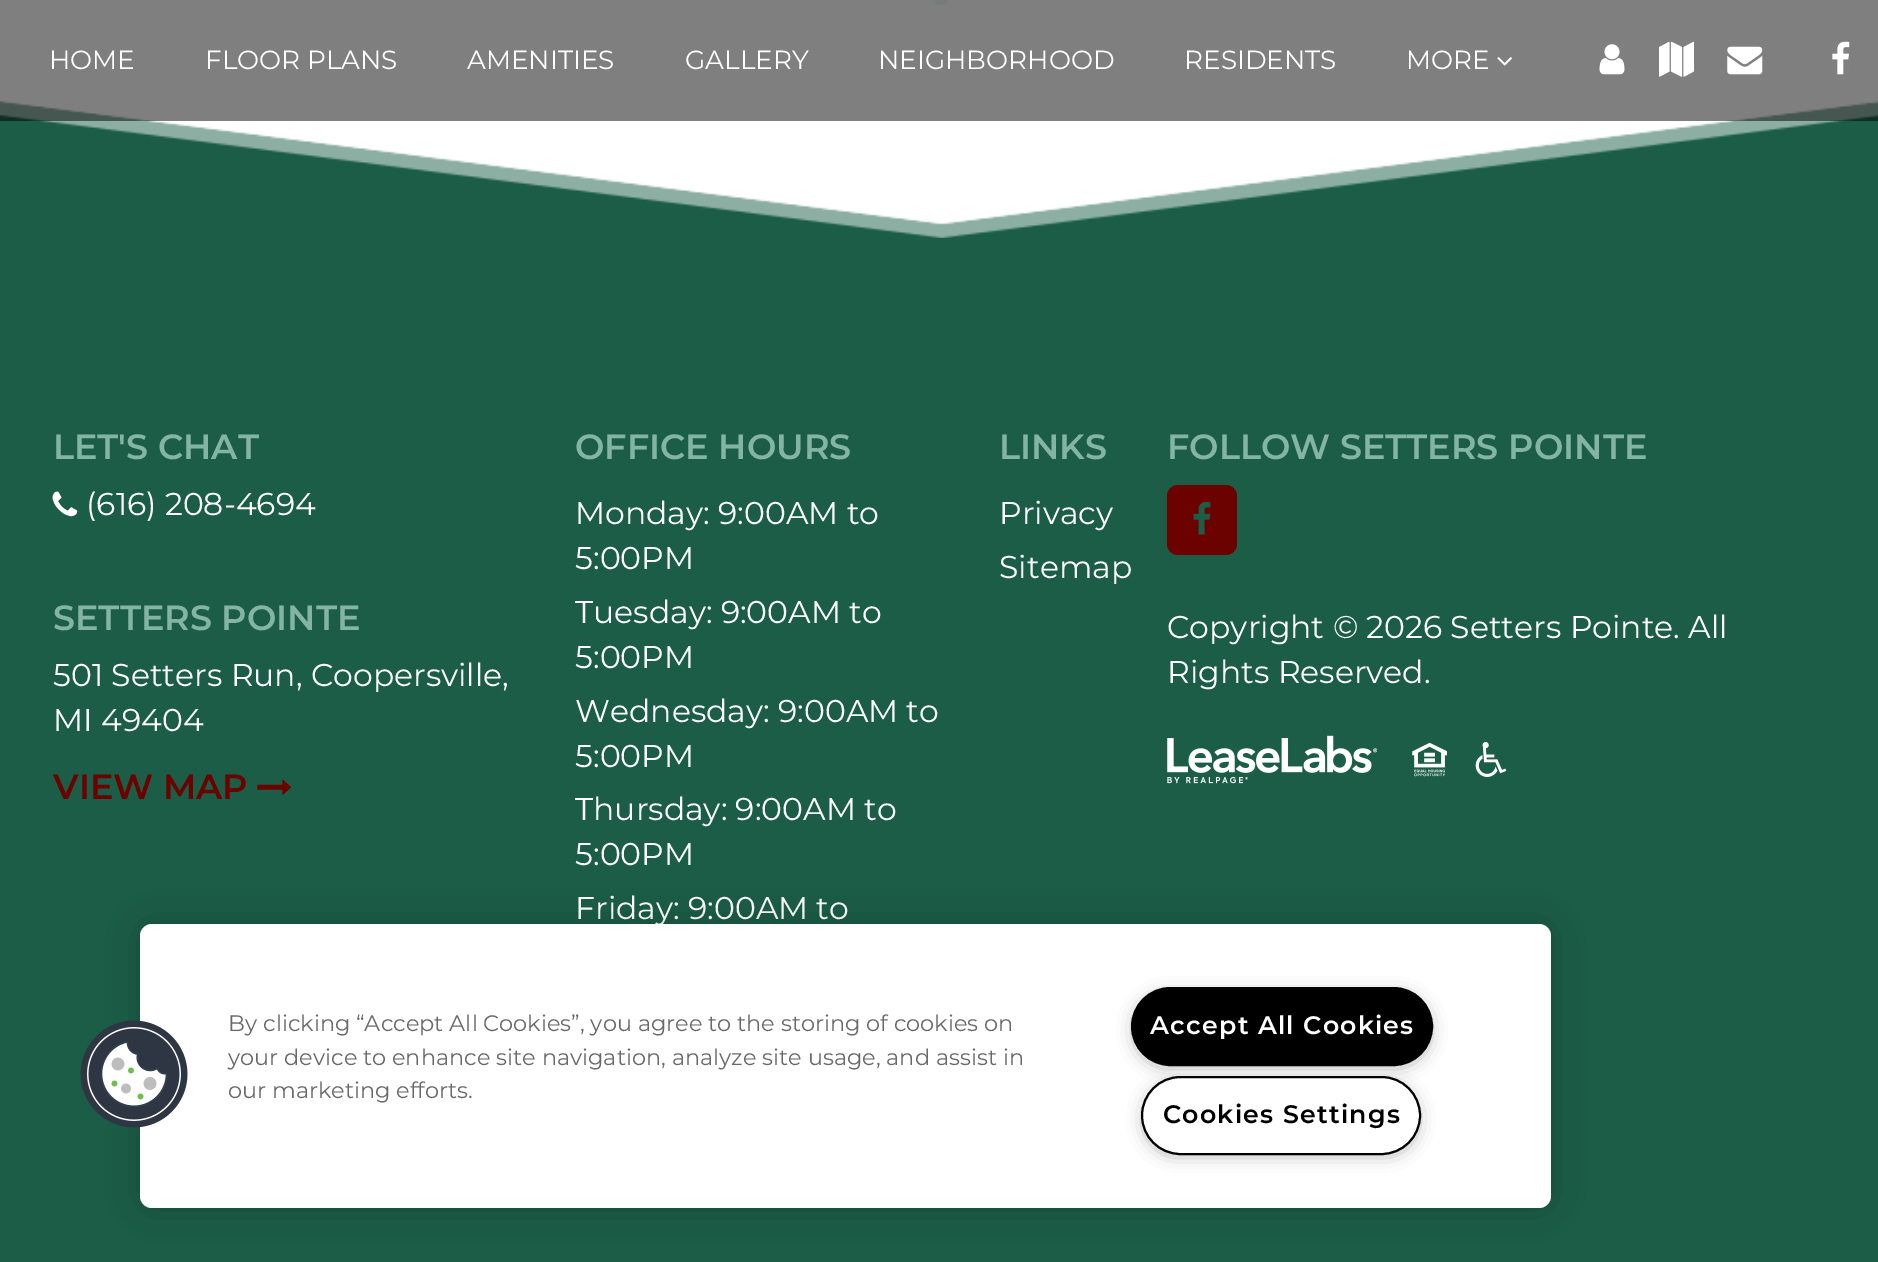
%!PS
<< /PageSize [1878 1262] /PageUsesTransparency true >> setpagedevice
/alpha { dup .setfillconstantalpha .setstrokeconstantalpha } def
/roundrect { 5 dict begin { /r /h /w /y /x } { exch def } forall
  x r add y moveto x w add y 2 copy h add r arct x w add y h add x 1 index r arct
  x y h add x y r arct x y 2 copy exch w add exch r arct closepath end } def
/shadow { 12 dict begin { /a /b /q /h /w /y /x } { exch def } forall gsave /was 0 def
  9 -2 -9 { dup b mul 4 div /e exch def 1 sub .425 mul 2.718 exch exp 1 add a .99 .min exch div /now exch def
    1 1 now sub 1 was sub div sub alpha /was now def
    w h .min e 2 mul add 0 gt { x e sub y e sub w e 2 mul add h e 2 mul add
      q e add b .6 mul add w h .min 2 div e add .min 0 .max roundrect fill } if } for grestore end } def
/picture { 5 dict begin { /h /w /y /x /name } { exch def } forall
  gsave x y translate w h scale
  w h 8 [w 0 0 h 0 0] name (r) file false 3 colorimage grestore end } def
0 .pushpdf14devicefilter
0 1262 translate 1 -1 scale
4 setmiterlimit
1 setgray
0 0 1878 1262 rectfill
(img1.rgb) 932 0 18 5 picture
0.106 0.365 0.278 setrgbcolor
0 100 1878 1162 rectfill
(img2.rgb) 0 5 1878 233 picture
0.5 alpha
0 setgray
0 0 1878 121 rectfill
/Montserrat-Regular [26.25 0 0 -26.25 0 0] selectfont
1 alpha
1 setgray
49 69 moveto (HOME) show
205 69 moveto (FLOOR PLANS) show
467 69 moveto (AMENITIES) show
685 69 moveto (GALLERY) show
878 69 moveto (NEIGHBORHOOD) show
1184 69 moveto (RESIDENTS) show
1406 69 moveto (MORE) show
(img3.rgb) 1497 57 15 9 picture
(img4.rgb) 1599 44 26 31 picture
(img5.rgb) 1659 41 35 36 picture
(img6.rgb) 1727 46 36 29 picture
(img7.rgb) 1832 41 18 34 picture
/Montserrat-SemiBold [35 0 0 -35 0 0] selectfont
0.518 0.71 0.643 setrgbcolor
53 459 moveto (LET'S CHAT) show
(img8.rgb) 52 491 26 26 picture
/Montserrat-Regular [31.5 0 0 -31.5 0 0] selectfont
1 setgray
86 515 moveto (\(616\) 208-4694) show
/Montserrat-SemiBold [35 0 0 -35 0 0] selectfont
0.518 0.71 0.643 setrgbcolor
53 630 moveto (SETTERS POINTE) show
/Montserrat-Regular [31.5 0 0 -31.5 0 0] selectfont
1 setgray
53 686 moveto (501 Setters Run, Coopersville,) show
53 731 moveto (MI 49404) show
/Montserrat-SemiBold [35 0 0 -35 0 0] selectfont
0.424 0.008 0 setrgbcolor
53 799 moveto (VIEW MAP) show
(img9.rgb) 257 779 34 16 picture
0.518 0.71 0.643 setrgbcolor
575 459 moveto (OFFICE HOURS) show
/Montserrat-Regular [31.5 0 0 -31.5 0 0] selectfont
1 setgray
575 524 moveto (Monday: 9:00AM to) show
575 569 moveto (5:00PM) show
575 623 moveto (Tuesday: 9:00AM to) show
575 668 moveto (5:00PM) show
575 722 moveto (Wednesday: 9:00AM to) show
575 767 moveto (5:00PM) show
575 820 moveto (Thursday: 9:00AM to) show
575 865 moveto (5:00PM) show
575 919 moveto (Friday: 9:00AM to) show
/Montserrat-SemiBold [35 0 0 -35 0 0] selectfont
0.518 0.71 0.643 setrgbcolor
999 459 moveto (LINKS) show
/Montserrat-Regular [31.5 0 0 -31.5 0 0] selectfont
1 setgray
999 524 moveto (Privacy) show
999 578 moveto (Sitemap) show
/Montserrat-SemiBold [35 0 0 -35 0 0] selectfont
0.518 0.71 0.643 setrgbcolor
1167 459 moveto (FOLLOW SETTERS POINTE) show
0.424 0.008 0 setrgbcolor
1167 485 70 70 11 roundrect fill
(img10.rgb) 1193 502 18 33 picture
/Montserrat-Regular [31.5 0 0 -31.5 0 0] selectfont
1 setgray
1167 638 moveto (Copyright © 2026 Setters Pointe. All) show
1167 683 moveto (Rights Reserved.) show
(img11.rgb) 1167 735 210 49 picture
(img12.rgb) 1412 742 35 35 picture
(img13.rgb) 1475 742 32 35 picture
0 setgray
140 924 1411 284 12 16 0.2 shadow
1 setgray
140 924 1411 284 12 roundrect fill
(img14.rgb) 80 1020 108 108 picture
/Montserrat-Regular [22.4 0 0 -22.4 0 0] selectfont
0.412 setgray
228 1031 moveto (By clicking “Accept All Cookies”, you agree to the storing of cookies on) show
228 1065 moveto (your device to enhance site navigation, analyze site usage, and assist in) show
228 1098 moveto (our marketing efforts.) show
0.6 setgray
1136 996 292 68 34 9 1 shadow
0 setgray
1132 988 300 77 38.5 roundrect gsave fill grestore
2 setlinewidth
stroke
/Montserrat-SemiBold [25.25 0 0 -25.25 0 0] selectfont
1 setgray
1150 1034 moveto 1.25 0 (Accept All Cookies) ashow
0.6 setgray
1146 1085 270 68 34 9 1 shadow
1 setgray
1142 1077 278 77 38.5 roundrect gsave fill grestore
0 setgray
stroke
1163 1123 moveto 1.25 0 (Cookies Settings) ashow
.poppdf14devicefilter showpage
